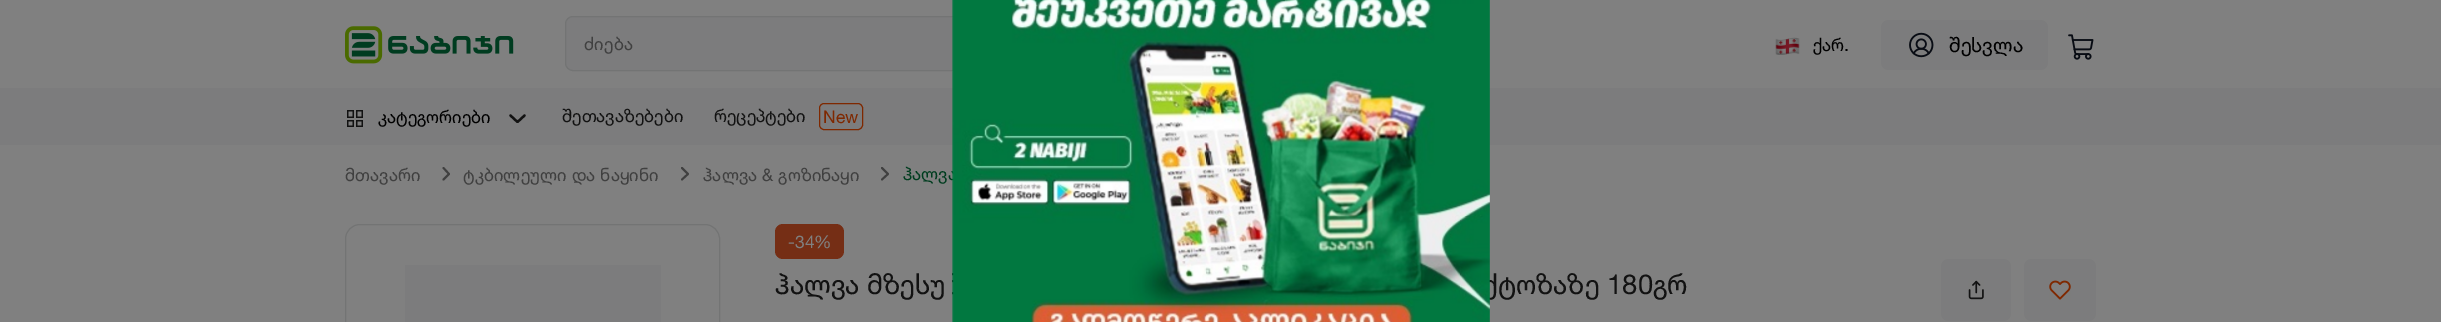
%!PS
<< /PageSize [2441 322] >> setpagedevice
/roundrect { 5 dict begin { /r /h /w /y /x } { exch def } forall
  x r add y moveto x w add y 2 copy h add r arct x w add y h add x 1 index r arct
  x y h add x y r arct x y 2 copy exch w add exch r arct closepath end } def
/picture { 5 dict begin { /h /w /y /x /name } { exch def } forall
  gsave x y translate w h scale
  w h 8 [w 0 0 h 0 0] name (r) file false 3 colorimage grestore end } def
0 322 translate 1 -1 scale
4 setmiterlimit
0.502 setgray
0 0 2441 322 rectfill
0.486 0.486 0.49 setrgbcolor
565.5 16.5 562 54 7.5 roundrect gsave fill grestore
0.451 0.455 0.455 setrgbcolor
stroke
0.486 0.486 0.49 setrgbcolor
0 88 2441 57 rectfill
/HelveticaNeue-Regular [17.5 0 0 -17.5 0 0] selectfont
0 0.239 0.122 setrgbcolor
903 180 moveto (ჰალვა) show
/HelveticaNeue-Regular [27.5 0 0 -27.5 0 0] selectfont
0.071 setgray
1483 294 moveto (ქტოზაზე 180გრ) show
(img1.rgb) 952 0 538 322 picture
(img2.rgb) 345 26 169 38 picture
/HelveticaNeue-Regular [17.5 0 0 -17.5 0 0] selectfont
0.251 setgray
584 50 moveto 0.25 0 (ძიება) ashow
(img3.rgb) 1775 37 25 18 picture
0 setgray
1813 51 moveto (ქარ.) show
0.486 0.486 0.49 setrgbcolor
1881 20 167 50 8 roundrect fill
(img4.rgb) 1909 32 25 26 picture
/HelveticaNeue-Regular [20 0 0 -20 0 0] selectfont
0 setgray
1949 52 moveto (შესვლა) show
(img5.rgb) 2068 34 26 26 picture
(img6.rgb) 347 110 16 17 picture
/HelveticaNeue-Regular [17.5 0 0 -17.5 0 0] selectfont
378 123 moveto (კატეგორიები) show
0.071 setgray
2.3 setlinewidth
1 setlinecap
1 setlinejoin
newpath 510.5 115.5 moveto 517.5 122 lineto 524.5 115.5 lineto stroke
562 122 moveto (შეთავაზებები) show
714 122 moveto (რეცეპტები) show
0.498 0.157 0 setrgbcolor
1 setlinewidth
0 setlinecap
0 setlinejoin
819.5 103.5 43 26 4.5 roundrect stroke
823 123 moveto (New) show
0.251 setgray
345 181 moveto 0.1 0 (მთავარი) ashow
1.9 setlinewidth
1 setlinecap
1 setlinejoin
newpath 443.5 179.5 moveto 449 174 lineto 443.5 168 lineto stroke
463 181 moveto 0.1 0 (ტკბილეული და ნაყინი) ashow
newpath 682 179.5 moveto 688 174 lineto 682 168 lineto stroke
703 181 moveto 0.1 0 (ჰალვა & გოზინაყი) ashow
newpath 882 179.5 moveto 888 174 lineto 882 168 lineto stroke
0.451 0.455 0.455 setrgbcolor
1 setlinewidth
0 setlinecap
0 setlinejoin
345.5 224.5 374 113 14.5 roundrect stroke
0.486 0.486 0.49 setrgbcolor
405 265 256 57 rectfill
0.459 0.18 0.082 setrgbcolor
775 224 69 35 8 roundrect fill
0.502 setgray
788 248 moveto (-34%) show
/HelveticaNeue-Regular [27.5 0 0 -27.5 0 0] selectfont
0.071 setgray
775 294 moveto (ჰალვა მზესუ) show
0.486 0.486 0.49 setrgbcolor
1941 259 70 62 8 roundrect fill
(img7.rgb) 1968 280 16 20 picture
2024 259 72 62 8 roundrect fill
(img8.rgb) 2049 280 22 20 picture
showpage
